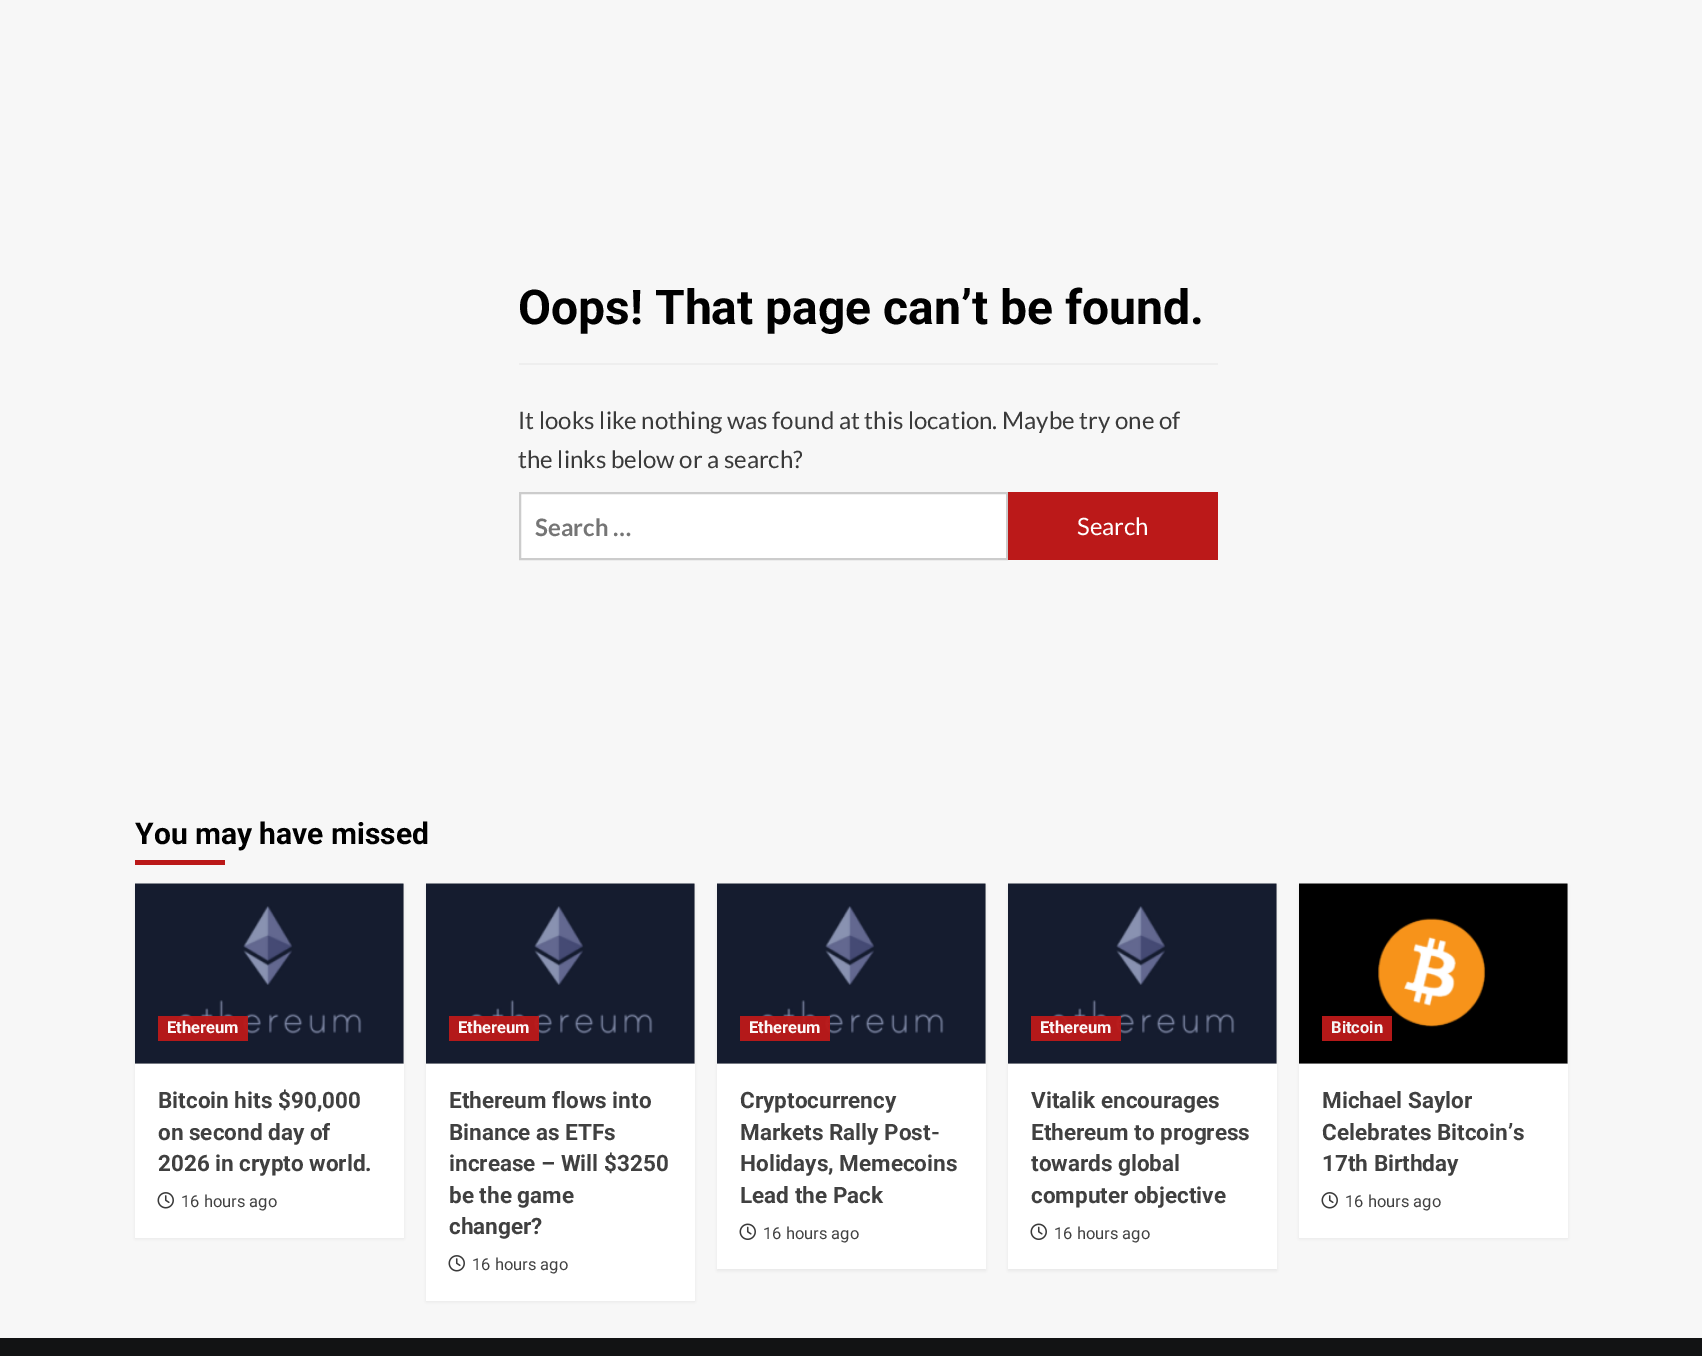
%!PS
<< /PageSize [1702 1356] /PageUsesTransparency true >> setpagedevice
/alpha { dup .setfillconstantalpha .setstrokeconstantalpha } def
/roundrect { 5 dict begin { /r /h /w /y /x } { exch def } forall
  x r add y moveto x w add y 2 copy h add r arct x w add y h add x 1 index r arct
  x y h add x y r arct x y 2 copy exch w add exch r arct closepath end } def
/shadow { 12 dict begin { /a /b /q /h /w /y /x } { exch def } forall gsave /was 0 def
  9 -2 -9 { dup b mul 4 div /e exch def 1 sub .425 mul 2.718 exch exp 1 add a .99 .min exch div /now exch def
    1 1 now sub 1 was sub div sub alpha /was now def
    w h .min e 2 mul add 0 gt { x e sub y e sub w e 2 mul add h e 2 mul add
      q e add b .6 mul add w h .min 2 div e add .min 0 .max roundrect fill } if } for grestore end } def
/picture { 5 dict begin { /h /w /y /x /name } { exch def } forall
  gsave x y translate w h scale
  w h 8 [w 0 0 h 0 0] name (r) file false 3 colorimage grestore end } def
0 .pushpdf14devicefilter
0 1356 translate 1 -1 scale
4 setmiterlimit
0.969 setgray
0 0 1702 1356 rectfill
0.933 setgray
519 363 699 2 rectfill
/Roboto-Bold [48 0 0 -48 0 0] selectfont
0 setgray
518 324 moveto (Oops! That page can’t be found.) show
/Lato-Regular [24 0 0 -24 0 0] selectfont
0.227 setgray
518 429 moveto (It looks like nothing was found at this location. Maybe try one of) show
518 468 moveto (the links below or a search?) show
1 setgray
newpath 520 493 moveto 1007 493 lineto 1007 559 lineto 520 559 lineto closepath gsave fill grestore
0.8 setgray
2 setlinewidth
stroke
/Lato-Bold [24 0 0 -24 0 0] selectfont
0.459 setgray
535 536 moveto (Search …) show
0.733 0.098 0.098 setrgbcolor
1008 492 210 68 rectfill
/Lato-Regular [24 0 0 -24 0 0] selectfont
1 setgray
1077 535 moveto (Search) show
/Roboto-Bold [30 0 0 -30 0 0] selectfont
0 setgray
135 844 moveto (You may have missed) show
0.733 0.098 0.098 setrgbcolor
135 860 90 5 rectfill
0 setgray
135 885 269 354 0 1.5 0.05 shadow
1 setgray
135 1064 269 174 rectfill
0.847 setgray
135 884 269 180 rectfill
(img1.rgb) 135 883 269 181 picture
0.96 alpha
0.733 0.098 0.098 setrgbcolor
158 1016 90 25 rectfill
/Roboto-Bold [16.5 0 0 -16.5 0 0] selectfont
1 alpha
0.988 0.965 0.965 setrgbcolor
167 1033 moveto (Ethereum) show
/Roboto-Bold [22.5 0 0 -22.5 0 0] selectfont
0.251 setgray
158 1108 moveto (Bitcoin hits $90,000) show
158 1140 moveto (on second day of) show
158 1171 moveto (2026 in crypto world.) show
(img2.rgb) 157 1192 17 17 picture
/Roboto-Regular [16.5 0 0 -16.5 0 0] selectfont
181 1207 moveto (16 hours ago) show
0 setgray
426 885 269 417 0 1.5 0.05 shadow
1 setgray
426 1064 269 237 rectfill
0.847 setgray
426 884 269 180 rectfill
(img1.rgb) 426 883 269 181 picture
0.96 alpha
0.733 0.098 0.098 setrgbcolor
449 1016 90 25 rectfill
/Roboto-Bold [16.5 0 0 -16.5 0 0] selectfont
1 alpha
0.988 0.965 0.965 setrgbcolor
458 1033 moveto (Ethereum) show
/Roboto-Bold [22.5 0 0 -22.5 0 0] selectfont
0.251 setgray
449 1108 moveto (Ethereum flows into) show
449 1140 moveto (Binance as ETFs) show
449 1171 moveto (increase – Will $3250) show
449 1203 moveto (be the game) show
449 1234 moveto (changer?) show
(img2.rgb) 448 1255 17 17 picture
/Roboto-Regular [16.5 0 0 -16.5 0 0] selectfont
472 1270 moveto (16 hours ago) show
0 setgray
717 885 269 386 0 1.5 0.05 shadow
1 setgray
717 1064 269 205 rectfill
0.847 setgray
717 884 269 180 rectfill
(img1.rgb) 717 883 269 181 picture
0.96 alpha
0.733 0.098 0.098 setrgbcolor
740 1016 90 25 rectfill
/Roboto-Bold [16.5 0 0 -16.5 0 0] selectfont
1 alpha
0.988 0.965 0.965 setrgbcolor
749 1033 moveto (Ethereum) show
/Roboto-Bold [22.5 0 0 -22.5 0 0] selectfont
0.251 setgray
740 1108 moveto (Cryptocurrency) show
740 1140 moveto (Markets Rally Post-) show
740 1171 moveto (Holidays, Memecoins) show
740 1203 moveto (Lead the Pack) show
(img3.rgb) 739 1223 17 17 picture
/Roboto-Regular [16.5 0 0 -16.5 0 0] selectfont
763 1239 moveto (16 hours ago) show
0 setgray
1008 885 269 386 0 1.5 0.05 shadow
1 setgray
1008 1064 269 205 rectfill
0.847 setgray
1008 884 269 180 rectfill
(img1.rgb) 1008 883 269 181 picture
0.96 alpha
0.733 0.098 0.098 setrgbcolor
1031 1016 90 25 rectfill
/Roboto-Bold [16.5 0 0 -16.5 0 0] selectfont
1 alpha
0.988 0.965 0.965 setrgbcolor
1040 1033 moveto (Ethereum) show
/Roboto-Bold [22.5 0 0 -22.5 0 0] selectfont
0.251 setgray
1031 1108 moveto (Vitalik encourages) show
1031 1140 moveto (Ethereum to progress) show
1031 1171 moveto (towards global) show
1031 1203 moveto (computer objective) show
(img3.rgb) 1030 1223 17 17 picture
/Roboto-Regular [16.5 0 0 -16.5 0 0] selectfont
1054 1239 moveto (16 hours ago) show
0 setgray
1299 885 269 354 0 1.5 0.05 shadow
1 setgray
1299 1064 269 174 rectfill
0.847 setgray
1299 884 269 180 rectfill
(img4.rgb) 1299 883 269 181 picture
0.706 0.094 0.094 setrgbcolor
1322 1016 70 25 rectfill
/Roboto-Bold [16.5 0 0 -16.5 0 0] selectfont
0.961 setgray
1331 1033 moveto (Bitcoin) show
/Roboto-Bold [22.5 0 0 -22.5 0 0] selectfont
0.251 setgray
1322 1108 moveto (Michael Saylor) show
1322 1140 moveto (Celebrates Bitcoin’s) show
1322 1171 moveto (17th Birthday) show
(img2.rgb) 1321 1192 17 17 picture
/Roboto-Regular [16.5 0 0 -16.5 0 0] selectfont
1345 1207 moveto (16 hours ago) show
0.071 0.075 0.078 setrgbcolor
0 1338 1702 18 rectfill
.poppdf14devicefilter showpage
